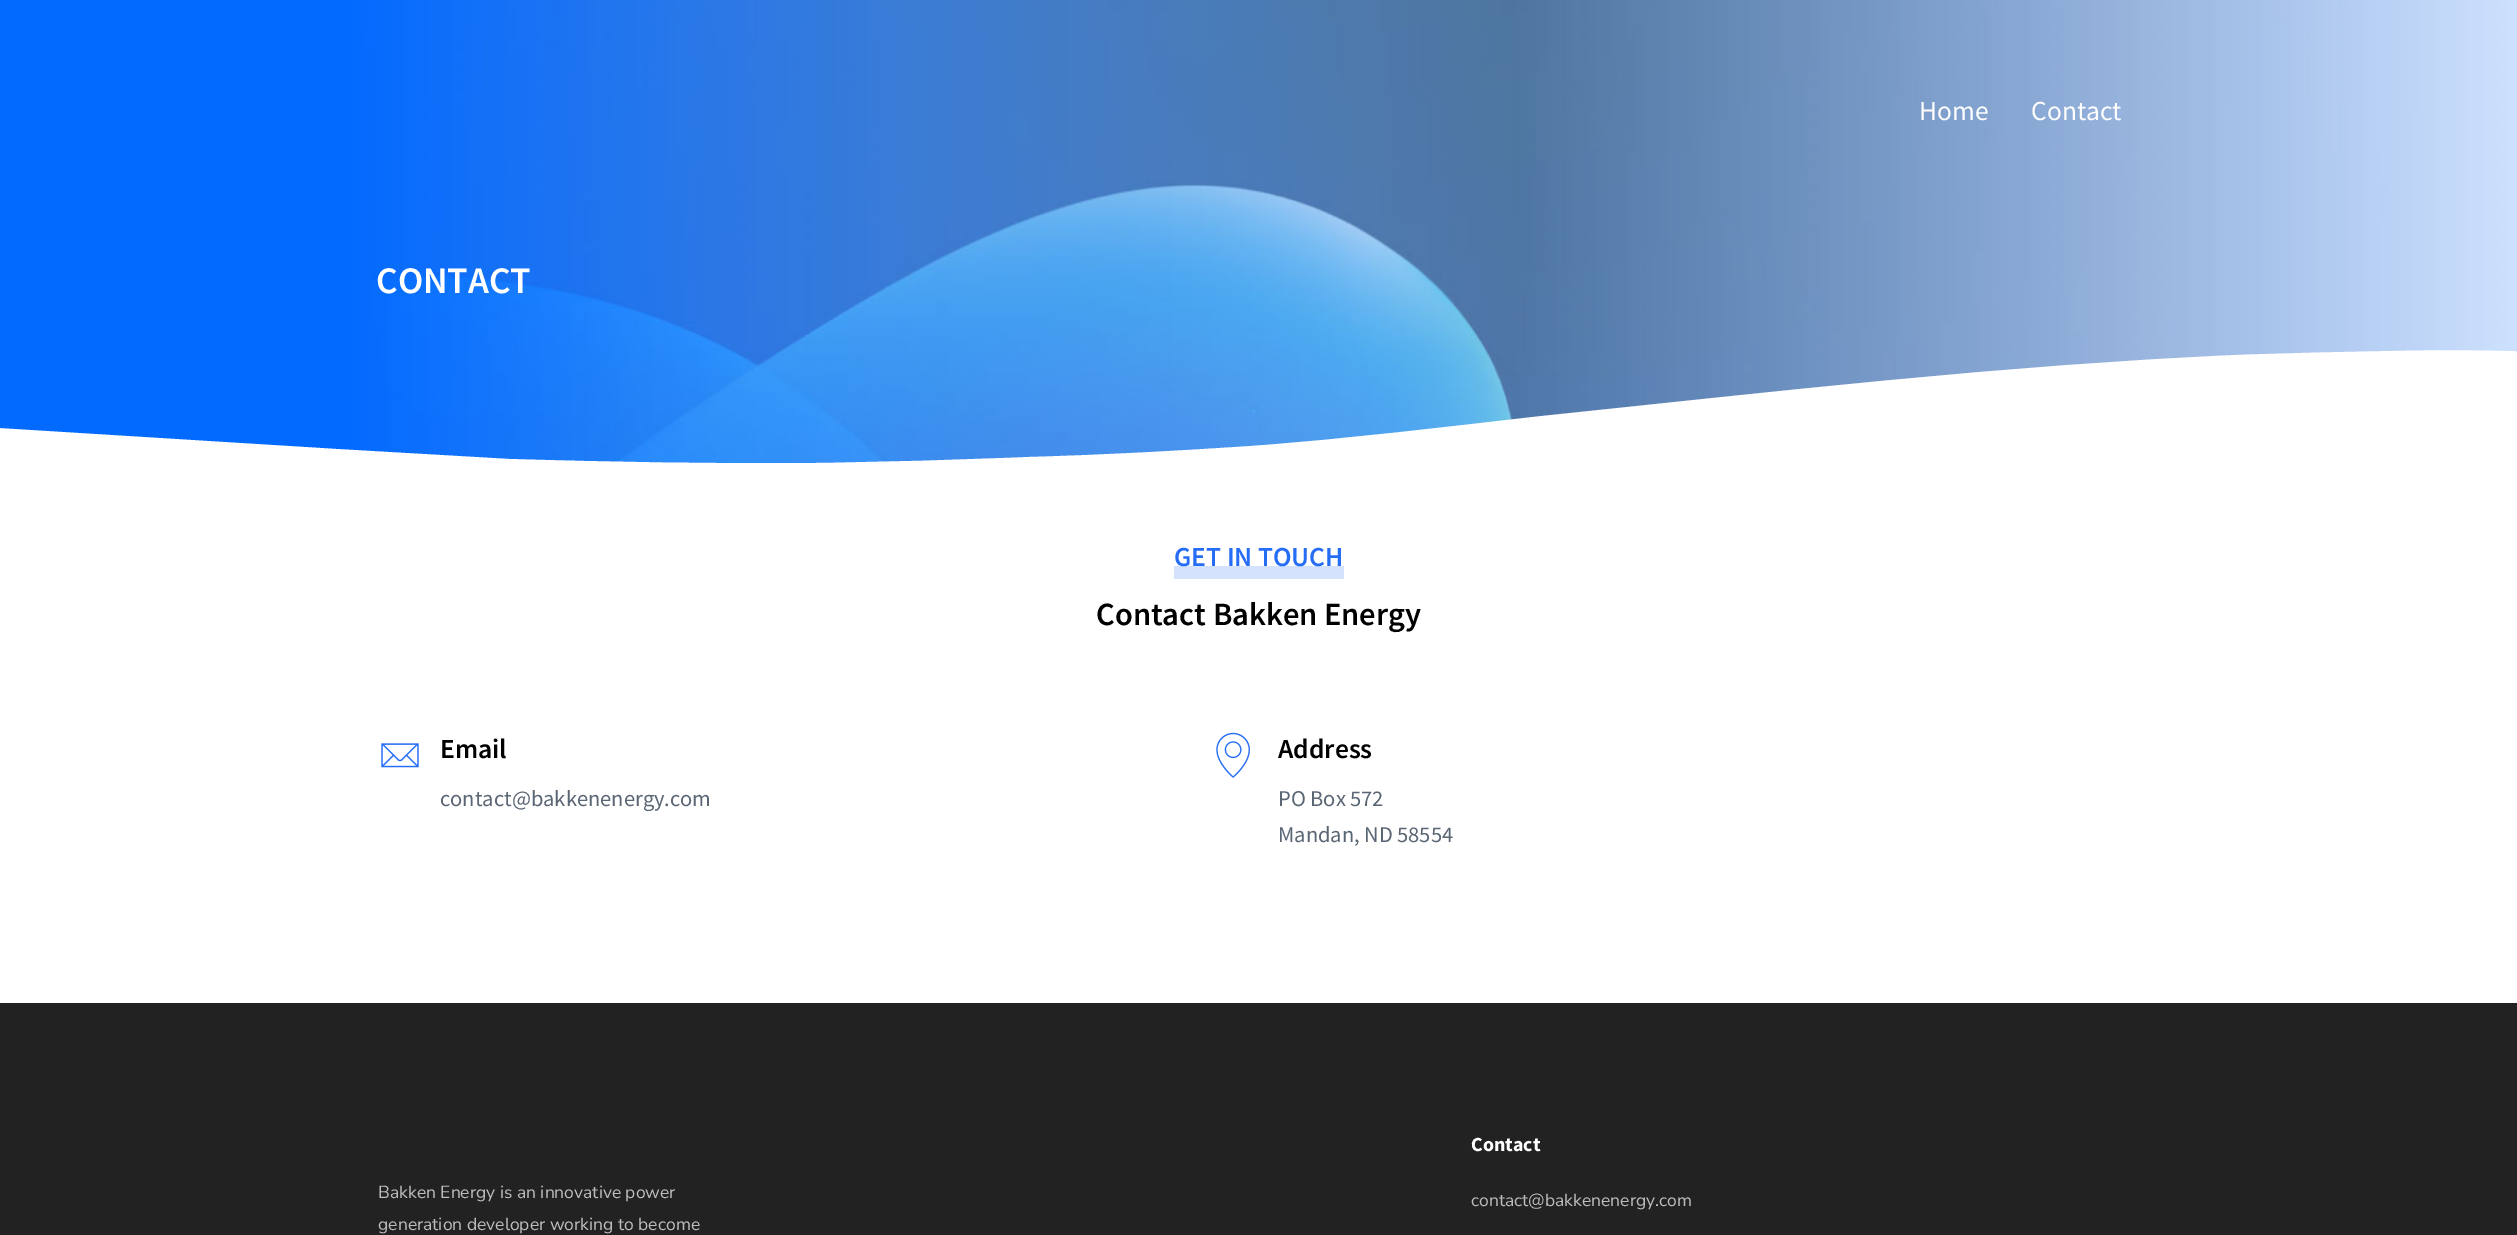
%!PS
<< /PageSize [2517 1235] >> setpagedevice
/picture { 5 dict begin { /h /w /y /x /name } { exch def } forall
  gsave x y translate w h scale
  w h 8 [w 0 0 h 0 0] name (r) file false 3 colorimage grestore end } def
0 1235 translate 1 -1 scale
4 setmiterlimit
1 setgray
0 0 2517 1235 rectfill
(img1.rgb) 0 0 2517 464 picture
/SourceSansPro-Regular [27.5 0 0 -27.5 0 0] selectfont
1919 120 moveto (Home) show
2031 120 moveto (Contact) show
/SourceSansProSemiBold-SemiBold [37.5 0 0 -37.5 0 0] selectfont
376 293 moveto (CONTACT) show
newpath -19 427 moveto 336 449 lineto 509 459 lineto 611 462 713 464 816 463 curveto 887 462 958 460 1029 457 curveto 1103 455 1177 451 1251 446 curveto 1348 439 1445 427 1542 416 curveto 1773 392 2004 365 2237 355 curveto 2289 353 2341 352 2393 351 curveto 2441 350 2489 350 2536 352 curveto 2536 562 lineto -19 562 lineto closepath fill
0.831 0.886 0.992 setrgbcolor
1174 566 170 13 rectfill
/SourceSansProSemiBold-SemiBold [27.5 0 0 -27.5 0 0] selectfont
0.149 0.427 0.965 setrgbcolor
1174 566 moveto (GET IN TOUCH) show
/SourceSansProSemiBold-SemiBold [32.5 0 0 -32.5 0 0] selectfont
0 setgray
1096 625 moveto (Contact Bakken Energy) show
(img2.rgb) 381 743 38 25 picture
/SourceSansProSemiBold-SemiBold [27.5 0 0 -27.5 0 0] selectfont
440 758 moveto (Email) show
/SourceSansPro-Regular [22.5 0 0 -22.5 0 0] selectfont
0.357 0.4 0.455 setrgbcolor
440 806 moveto (contact@bakkenenergy.com) show
(img3.rgb) 1216 732 34 46 picture
/SourceSansProSemiBold-SemiBold [27.5 0 0 -27.5 0 0] selectfont
0 setgray
1278 758 moveto (Address) show
/SourceSansPro-Regular [22.5 0 0 -22.5 0 0] selectfont
0.357 0.4 0.455 setrgbcolor
1278 806 moveto (PO Box 572) show
1278 842 moveto (Mandan, ND 58554) show
0.133 setgray
0 1003 2517 232 rectfill
/NunitoSans-ExtraLight [17.5 0 0 -17.5 0 0] selectfont
0.741 setgray
378 1198 moveto (Bakken Energy is an innovative power) show
378 1230 moveto (generation developer working to become) show
/SourceSansPro-Bold [20 0 0 -20 0 0] selectfont
1 setgray
1471 1151 moveto (Contact) show
/NunitoSans-ExtraLight [17.5 0 0 -17.5 0 0] selectfont
0.741 setgray
1471 1206 moveto (contact@bakkenenergy.com) show
showpage
